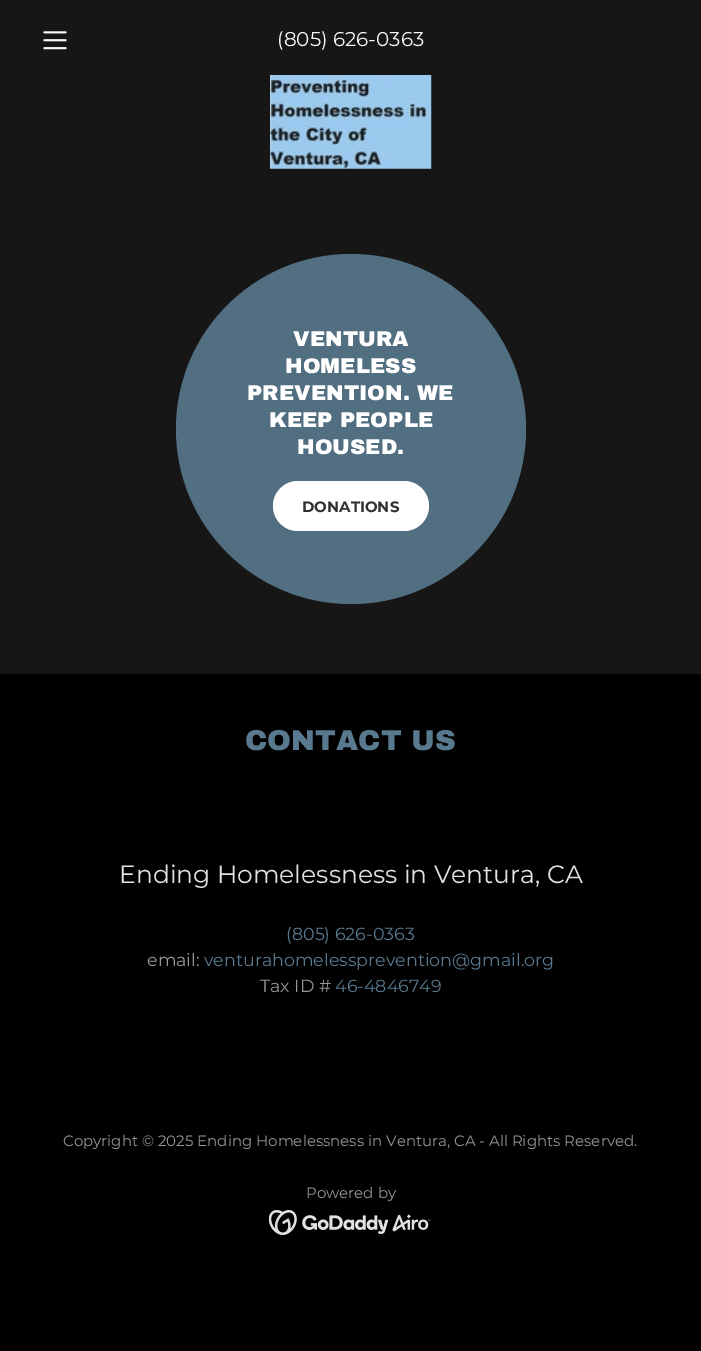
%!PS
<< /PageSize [701 1351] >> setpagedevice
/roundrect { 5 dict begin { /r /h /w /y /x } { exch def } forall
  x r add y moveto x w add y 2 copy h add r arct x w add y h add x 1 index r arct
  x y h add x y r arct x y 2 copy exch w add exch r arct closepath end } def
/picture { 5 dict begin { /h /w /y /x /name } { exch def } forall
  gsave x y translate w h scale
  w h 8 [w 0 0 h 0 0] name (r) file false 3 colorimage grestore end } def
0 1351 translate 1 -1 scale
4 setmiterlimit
0 setgray
0 0 701 1351 rectfill
0.086 setgray
0 0 701 674 rectfill
(img1.rgb) 43 31 24 19 picture
/Montserrat-Regular [20 0 0 -20 0 0] selectfont
0.969 setgray
277 46 moveto (\(805\) 626-0363) show
(img2.rgb) 270 75 162 94 picture
0.322 0.435 0.51 setrgbcolor
newpath 351 429 175 0 360 arc closepath fill
/ArchivoBlack-Black [21.25 0 0 -21.25 0 0] selectfont
1 setgray
293 346 moveto (VENTURA) show
285 373 moveto (HOMELESS) show
247 400 moveto (PREVENTION. WE) show
269 427 moveto (KEEP PEOPLE) show
297 454 moveto (HOUSED.) show
273 481 156 50 25 roundrect fill
/Montserrat-Bold [15 0 0 -15 0 0] selectfont
0.188 setgray
302 512 moveto (DONATIONS) show
/ArchivoBlack-Black [28.75 0 0 -28.75 0 0] selectfont
0.349 0.475 0.557 setrgbcolor
245 750 moveto (CONTACT US) show
/Montserrat-Regular [25 0 0 -25 0 0] selectfont
0.886 setgray
119 883 moveto (Ending Homelessness in Ventura, CA) show
/Montserrat-Regular [17.5 0 0 -17.5 0 0] selectfont
0.349 0.475 0.557 setrgbcolor
286 940 moveto (\(805\) 626-0363) show
0.588 setgray
147 966 moveto (email:) show
0.349 0.475 0.557 setrgbcolor
204 966 moveto (venturahomelessprevention@gmail.org) show
0.588 setgray
260 992 moveto (Tax ID #) show
0.349 0.475 0.557 setrgbcolor
335 992 moveto (46-4846749) show
/Montserrat-Regular [15 0 0 -15 0 0] selectfont
0.588 setgray
63 1146 moveto (Copyright © 2025 Ending Homelessness in Ventura, CA - All Rights Reserved.) show
306 1198 moveto (Powered by) show
(img3.rgb) 269 1210 162 25 picture
showpage
